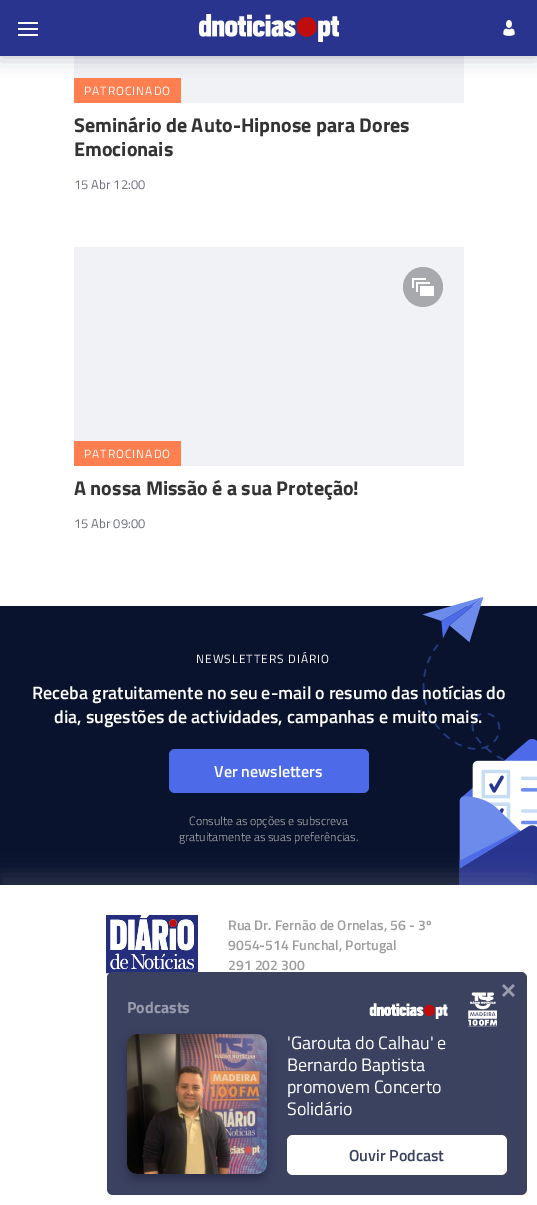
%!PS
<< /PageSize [537 1205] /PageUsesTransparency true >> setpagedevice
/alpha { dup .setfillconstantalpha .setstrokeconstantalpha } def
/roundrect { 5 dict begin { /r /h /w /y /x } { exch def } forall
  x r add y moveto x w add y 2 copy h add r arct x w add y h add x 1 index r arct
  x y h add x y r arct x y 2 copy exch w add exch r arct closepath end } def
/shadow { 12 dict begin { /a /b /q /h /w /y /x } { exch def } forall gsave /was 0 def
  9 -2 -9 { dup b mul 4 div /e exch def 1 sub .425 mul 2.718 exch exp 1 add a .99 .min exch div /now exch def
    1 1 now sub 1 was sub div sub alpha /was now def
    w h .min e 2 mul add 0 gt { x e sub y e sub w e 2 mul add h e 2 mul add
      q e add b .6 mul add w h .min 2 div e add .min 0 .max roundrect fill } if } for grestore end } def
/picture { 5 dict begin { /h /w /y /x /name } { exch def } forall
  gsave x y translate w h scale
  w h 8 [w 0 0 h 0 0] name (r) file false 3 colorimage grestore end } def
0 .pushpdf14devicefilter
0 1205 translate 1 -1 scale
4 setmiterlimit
1 setgray
0 0 537 1205 rectfill
0.941 0.949 0.961 setrgbcolor
74 56 390 47 rectfill
1 0.498 0.314 setrgbcolor
74 78 107 25 rectfill
0.039 0.075 0.176 setrgbcolor
0 0 537 56 0 10 0.3 shadow
0.157 0.204 0.557 setrgbcolor
0 0 537 56 rectfill
1 setgray
18 22 20 2 1 roundrect fill
18 28 20 2 1 roundrect fill
18 34 20 2 1 roundrect fill
(img1.rgb) 199 14 140 28 picture
(img2.rgb) 503 20 12 16 picture
/TitilliumWeb-Regular [12 0 0 -12 0 0] selectfont
84 95 moveto 1 0 (PATROCINADO) ashow
/TitilliumWeb-Bold [20 0 0 -20 0 0] selectfont
0.2 setgray
74 132 moveto (Seminário de Auto-Hipnose para Dores) show
74 156 moveto (Emocionais) show
/TitilliumWeb-Regular [13 0 0 -13 0 0] selectfont
0.431 0.439 0.502 setrgbcolor
74 189 moveto (15 Abr 12:00) show
0.941 0.949 0.961 setrgbcolor
74 247 390 219 rectfill
0.659 0.663 0.675 setrgbcolor
newpath 423 287 20 0 360 arc closepath fill
(img3.rgb) 412 278 22 18 picture
1 0.498 0.314 setrgbcolor
74 441 107 25 rectfill
/TitilliumWeb-Regular [12 0 0 -12 0 0] selectfont
1 setgray
84 458 moveto 1 0 (PATROCINADO) ashow
/TitilliumWeb-Bold [20 0 0 -20 0 0] selectfont
0.2 setgray
74 495 moveto (A nossa Missão é a sua Proteção!) show
/TitilliumWeb-Regular [13 0 0 -13 0 0] selectfont
0.431 0.439 0.502 setrgbcolor
74 528 moveto (15 Abr 09:00) show
0.039 0.075 0.176 setrgbcolor
0 606 537 279 rectfill
(img4.rgb) 422 596 82 165 picture
(img5.rgb) 459 739 78 146 picture
/TitilliumWeb-Regular [12 0 0 -12 0 0] selectfont
1 setgray
196 663 moveto 1 0 (NEWSLETTERS DIÁRIO) ashow
/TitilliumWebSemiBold-SemiBold [18 0 0 -18 0 0] selectfont
32 699 moveto (Receba gratuitamente no seu e-mail o resumo das notícias do) show
54 723 moveto (dia, sugestões de actividades, campanhas e muito mais.) show
0.302 0.42 0.91 setrgbcolor
169 749 200 44 6 roundrect fill
/TitilliumWebSemiBold-SemiBold [16 0 0 -16 0 0] selectfont
1 setgray
214 777 moveto (Ver newsletters) show
/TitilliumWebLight-Light [12 0 0 -12 0 0] selectfont
0.686 setgray
189 825 moveto (Consulte as opções e subscreva) show
179 841 moveto (gratuitamente as suas preferências.) show
0.655 setgray
0 875 537 320 0 10 0.2 shadow
1 setgray
0 885 537 320 rectfill
(img6.rgb) 106 915 92 59 picture
/TitilliumWebSemiBold-SemiBold [14 0 0 -14 0 0] selectfont
0.62 setgray
228 930 moveto (Rua Dr. Fernão de Ornelas, 56 - 3º) show
228 950 moveto (9054-514 Funchal, Portugal) show
228 970 moveto (291 202 300) show
0.231 0.259 0.376 setrgbcolor
107 972 420 223 6 roundrect fill
/TitilliumWebSemiBold-SemiBold [30 0 0 -30 0 0] selectfont
0.6 0.612 0.675 setrgbcolor
500 998 moveto (×) show
/TitilliumWeb-Bold [16 0 0 -16 0 0] selectfont
127 1013 moveto (Podcasts) show
(img7.rgb) 369 992 128 35 picture
0.157 0.18 0.282 setrgbcolor
127 1039 140 140 10 5 1 shadow
(img8.rgb) 127 1034 140 140 picture
/TitilliumWeb-Regular [18 0 0 -18 0 0] selectfont
1 setgray
287 1049 moveto ('Garouta do Calhau' e) show
287 1071 moveto (Bernardo Baptista) show
287 1093 moveto (promovem Concerto) show
287 1115 moveto (Solidário) show
287 1135 220 40 6 roundrect fill
/TitilliumWebSemiBold-SemiBold [16 0 0 -16 0 0] selectfont
0.231 0.259 0.376 setrgbcolor
349 1161 moveto (Ouvir Podcast) show
.poppdf14devicefilter showpage
